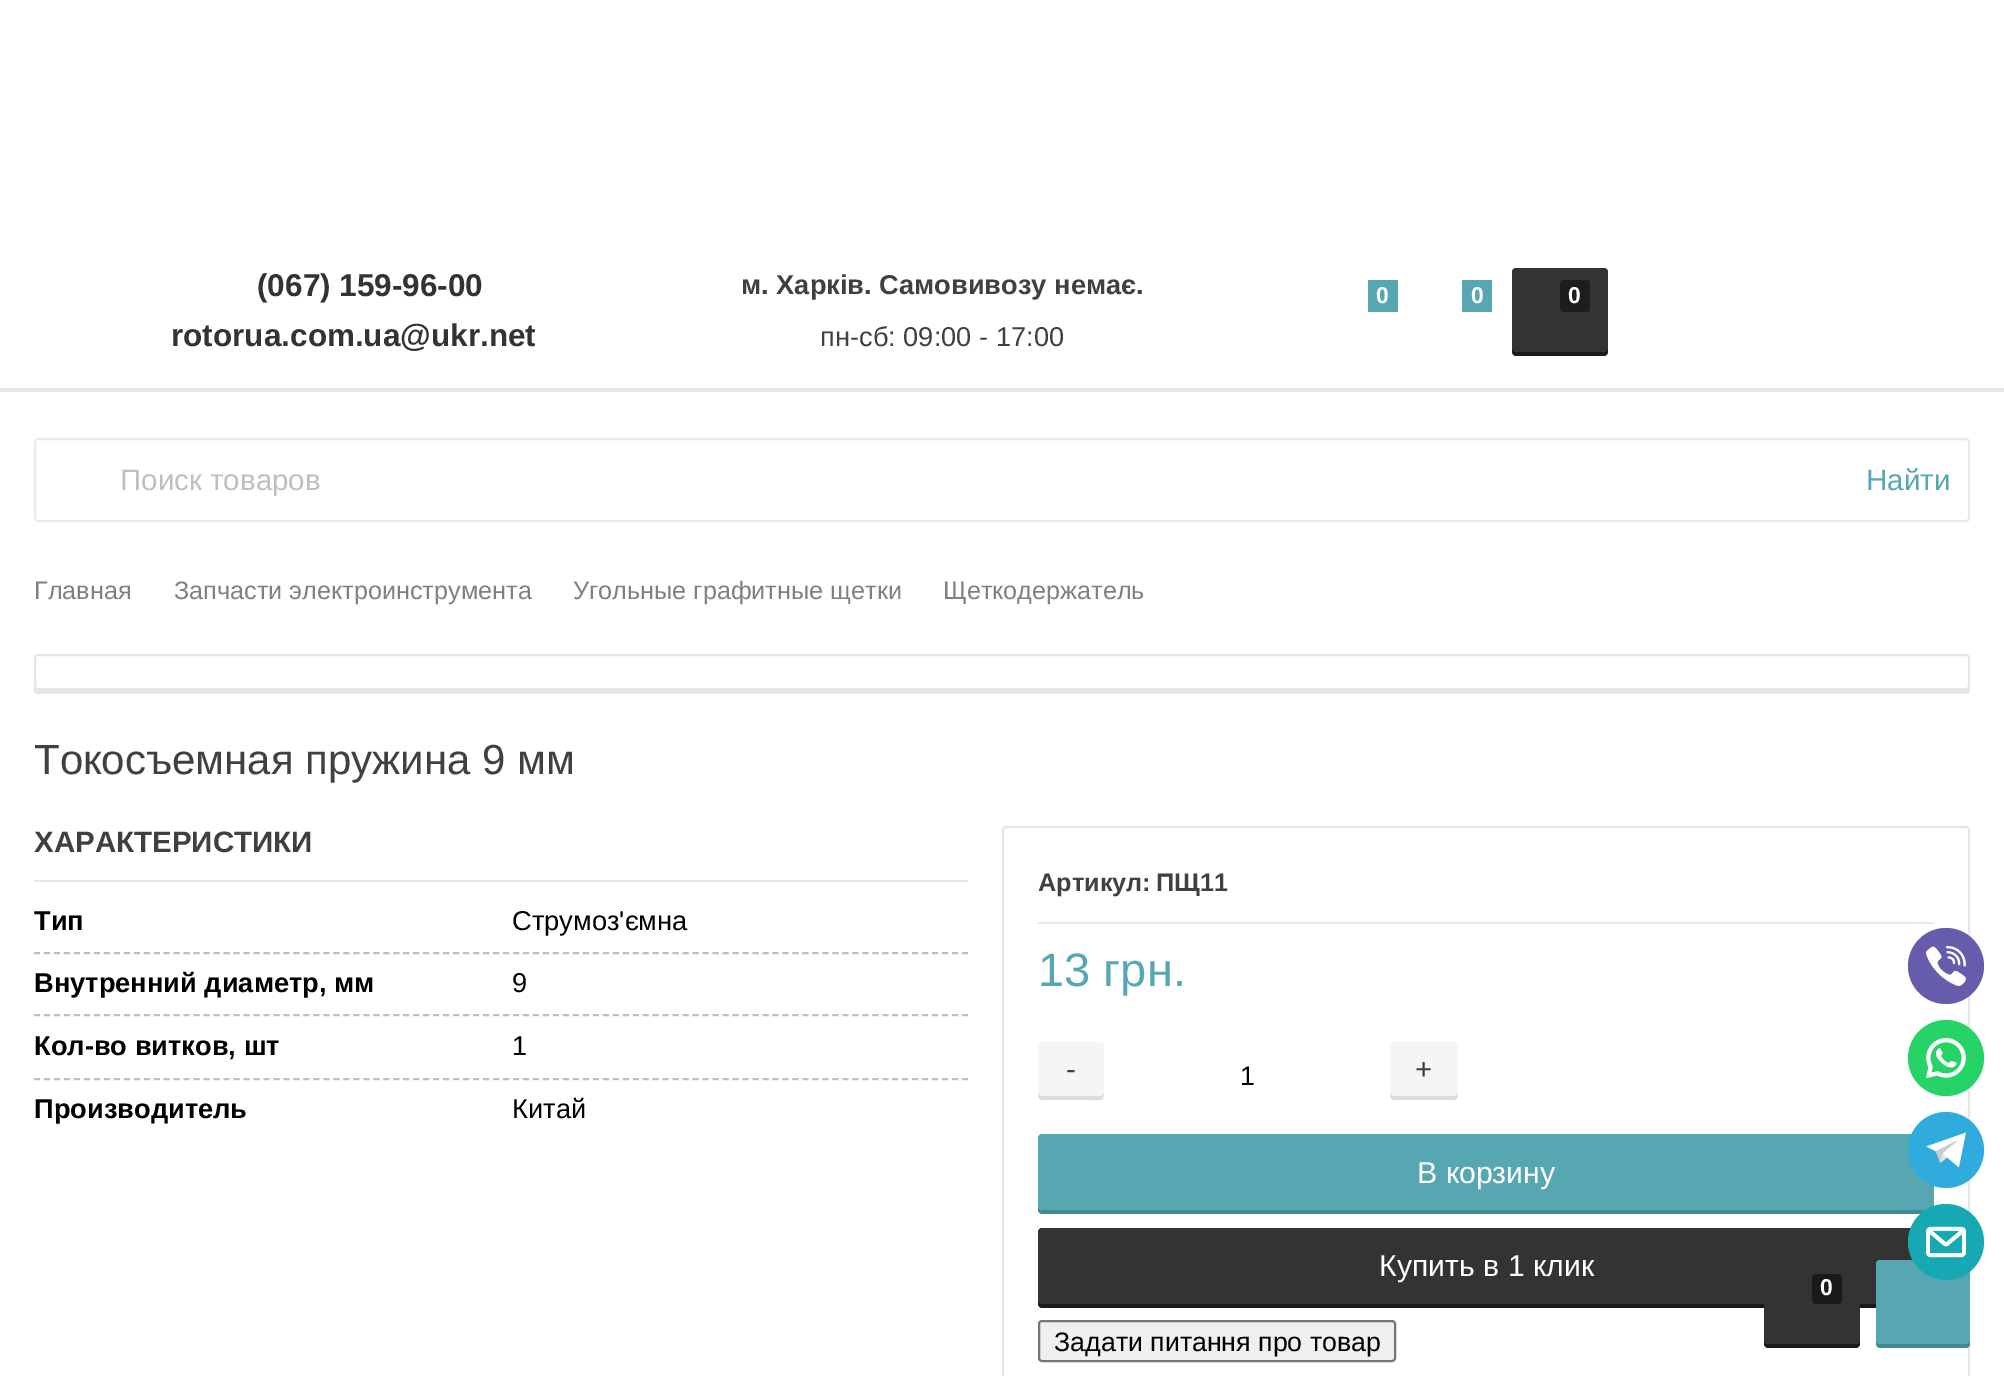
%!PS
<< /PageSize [2004 1376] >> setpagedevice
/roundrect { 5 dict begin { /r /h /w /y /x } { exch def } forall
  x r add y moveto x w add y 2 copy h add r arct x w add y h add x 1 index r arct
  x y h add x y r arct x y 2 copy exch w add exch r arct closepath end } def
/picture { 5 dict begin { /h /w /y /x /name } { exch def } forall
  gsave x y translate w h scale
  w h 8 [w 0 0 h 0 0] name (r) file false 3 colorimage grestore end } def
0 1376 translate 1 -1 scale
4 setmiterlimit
1 setgray
0 0 2004 1376 rectfill
0.902 setgray
0 388 2004 4 rectfill
/LiberationSans-Bold [31.5 0 0 -31.5 0 0] selectfont
0.2 setgray
257 296 moveto (\(067\) 159-96-00) show
171 346 moveto (rotorua.com.ua@ukr.net) show
/LiberationSans-Bold [27.25 0 0 -27.25 0 0] selectfont
0.251 setgray
741 294 moveto (м. Харків. Самовивозу немає.) show
/LiberationSans-Regular [27.25 0 0 -27.25 0 0] selectfont
820 346 moveto (пн-сб: 09:00 - 17:00) show
0.341 0.655 0.702 setrgbcolor
1368 280 30 32 rectfill
/LiberationSans-Bold [23 0 0 -23 0 0] selectfont
1 setgray
1376 303 moveto (0) show
0.341 0.655 0.702 setrgbcolor
1462 280 30 32 rectfill
1 setgray
1471 303 moveto (0) show
0.102 setgray
newpath 1512 348 moveto 1512 352 lineto 1512 354 1514 356 1516 356 curveto 1604 356 lineto 1606 356 1608 354 1608 352 curveto 1608 348 lineto 1608 350 1606 352 1604 352 curveto 1516 352 lineto 1514 352 1512 350 1512 348 curveto closepath fill
0.2 setgray
1512 268 96 84 4 roundrect fill
0.114 setgray
1560 280 30 32 4 roundrect fill
1 setgray
1568 303 moveto (0) show
0.922 setgray
2 setlinewidth
35 439 1934 82 3 roundrect stroke
gsave
120 464 1702 32 rectclip
/LiberationSans-Regular [29.5 0 0 -29.5 0 0] selectfont
0.749 setgray
120 490 moveto (Поиск товаров) show
grestore
/LiberationSans-Regular [29.5 0 0 -29.5 0 0] selectfont
0.341 0.655 0.702 setrgbcolor
1866 490 moveto (Найти) show
/LiberationSans-Regular [25.25 0 0 -25.25 0 0] selectfont
0.502 setgray
34 599 moveto (Главная) show
174 599 moveto (Запчасти электроинструмента) show
573 599 moveto (Угольные графитные щетки) show
943 599 moveto (Щеткодержатель) show
0.902 setgray
newpath 34 686 moveto 34 689 33 694 38 694 curveto 1966 694 lineto 1968 694 1969 693 1970 692 curveto 1970 686 lineto 1970 688 1968 690 1966 690 curveto 38 690 lineto 36 690 34 688 34 686 curveto closepath fill
1 setgray
35 655 1934 34 3 roundrect gsave fill grestore
0.902 setgray
stroke
/LiberationSans-Regular [42 0 0 -42 0 0] selectfont
0.251 setgray
34 774 moveto (Токосъемная пружина 9 мм) show
0.902 setgray
34 880 934 2 rectfill
/LiberationSans-Bold [29.5 0 0 -29.5 0 0] selectfont
0.251 setgray
34 852 moveto (ХАРАКТЕРИСТИКИ) show
0.749 setgray
[6 3.98] 0 setdash
newpath 34 953 moveto 968 953 lineto stroke
/LiberationSans-Bold [27.25 0 0 -27.25 0 0] selectfont
0 setgray
34 930 moveto (Тип) show
/LiberationSans-Regular [27.25 0 0 -27.25 0 0] selectfont
512 930 moveto (Струмоз'ємна) show
0.749 setgray
newpath 34 1015 moveto 968 1015 lineto stroke
/LiberationSans-Bold [27.25 0 0 -27.25 0 0] selectfont
0 setgray
34 992 moveto (Внутренний диаметр, мм) show
/LiberationSans-Regular [27.25 0 0 -27.25 0 0] selectfont
512 992 moveto (9) show
0.749 setgray
newpath 34 1079 moveto 968 1079 lineto stroke
/LiberationSans-Bold [27.25 0 0 -27.25 0 0] selectfont
0 setgray
34 1055 moveto (Кол-во витков, шт) show
/LiberationSans-Regular [27.25 0 0 -27.25 0 0] selectfont
512 1055 moveto (1) show
/LiberationSans-Bold [27.25 0 0 -27.25 0 0] selectfont
34 1118 moveto (Производитель) show
/LiberationSans-Regular [27.25 0 0 -27.25 0 0] selectfont
512 1118 moveto (Китай) show
0.902 setgray
[] 0 setdash
1003 827 966 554 3 roundrect stroke
0.922 setgray
1038 922 896 2 rectfill
/LiberationSans-Bold [25.25 0 0 -25.25 0 0] selectfont
0.251 setgray
1038 891 moveto (Артикул:) show
1156 891 moveto (ПЩ11) show
/LiberationSans-Regular [47 0 0 -47 0 0] selectfont
0.341 0.655 0.702 setrgbcolor
1038 986 moveto (13 грн.) show
0.859 setgray
newpath 1038 1092 moveto 1038 1102 1041 1100 1052 1100 curveto 1090 1100 lineto 1101 1100 1104 1102 1104 1092 curveto 1104 1094 1102 1096 1100 1096 curveto 1042 1096 lineto 1040 1096 1038 1094 1038 1092 curveto closepath fill
0.961 setgray
1038 1042 66 54 4 roundrect fill
/LiberationSans-Regular [29.5 0 0 -29.5 0 0] selectfont
0.251 setgray
1066 1079 moveto (-) show
/LiberationSans-Regular [26.75 0 0 -26.75 0 0] selectfont
0 setgray
1240 1085 moveto (1) show
0.859 setgray
newpath 1390 1092 moveto 1390 1102 1393 1100 1404 1100 curveto 1444 1100 lineto 1455 1100 1458 1102 1458 1092 curveto 1458 1094 1456 1096 1454 1096 curveto 1394 1096 lineto 1392 1096 1390 1094 1390 1092 curveto closepath fill
0.961 setgray
1390 1042 68 54 4 roundrect fill
/LiberationSans-Regular [29.5 0 0 -29.5 0 0] selectfont
0.251 setgray
1415 1079 moveto (+) show
0.263 0.537 0.58 setrgbcolor
newpath 1038 1206 moveto 1038 1210 lineto 1038 1212 1040 1214 1042 1214 curveto 1930 1214 lineto 1932 1214 1934 1212 1934 1210 curveto 1934 1206 lineto 1934 1208 1932 1210 1930 1210 curveto 1042 1210 lineto 1040 1210 1038 1208 1038 1206 curveto closepath fill
0.341 0.655 0.702 setrgbcolor
1038 1134 896 76 4 roundrect fill
/LiberationSans-Regular [30.25 0 0 -30.25 0 0] selectfont
1 setgray
1417 1183 moveto (В корзину) show
0.102 setgray
newpath 1038 1300 moveto 1038 1304 lineto 1038 1306 1040 1308 1042 1308 curveto 1930 1308 lineto 1932 1308 1934 1306 1934 1304 curveto 1934 1300 lineto 1934 1302 1932 1304 1930 1304 curveto 1042 1304 lineto 1040 1304 1038 1302 1038 1300 curveto closepath fill
0.2 setgray
1038 1228 896 76 4 roundrect fill
1 setgray
1379 1276 moveto (Купить в 1 клик) show
0.937 setgray
1039 1321 356 40 3 roundrect gsave fill grestore
0.463 setgray
stroke
/LiberationSans-Regular [26.75 0 0 -26.75 0 0] selectfont
0 setgray
1054 1351 moveto (Задати питання про товар) show
0.4 0.361 0.675 setrgbcolor
newpath 1946 966 38 0 360 arc closepath fill
(img1.rgb) 1926 946 40 40 picture
0.145 0.827 0.4 setrgbcolor
newpath 1946 1058 38 0 360 arc closepath fill
(img2.rgb) 1926 1038 40 40 picture
0.188 0.671 0.871 setrgbcolor
newpath 1946 1150 38 0 360 arc closepath fill
(img3.rgb) 1926 1132 40 36 picture
0.263 0.537 0.58 setrgbcolor
newpath 1876 1340 moveto 1876 1344 lineto 1876 1346 1878 1348 1880 1348 curveto 1966 1348 lineto 1968 1348 1970 1346 1970 1344 curveto 1970 1340 lineto 1970 1342 1968 1344 1966 1344 curveto 1880 1344 lineto 1878 1344 1876 1342 1876 1340 curveto closepath fill
0.341 0.655 0.702 setrgbcolor
1876 1260 94 84 4 roundrect fill
0.086 0.663 0.702 setrgbcolor
newpath 1946 1242 38 0 360 arc closepath fill
(img4.rgb) 1926 1226 40 32 picture
0.102 setgray
newpath 1764 1340 moveto 1764 1344 lineto 1764 1346 1766 1348 1768 1348 curveto 1856 1348 lineto 1858 1348 1860 1346 1860 1344 curveto 1860 1340 lineto 1860 1342 1858 1344 1856 1344 curveto 1768 1344 lineto 1766 1344 1764 1342 1764 1340 curveto closepath fill
0.2 setgray
1764 1260 96 84 4 roundrect fill
0.102 setgray
1812 1274 30 30 4 roundrect fill
/LiberationSans-Bold [23 0 0 -23 0 0] selectfont
1 setgray
1820 1295 moveto (0) show
showpage
